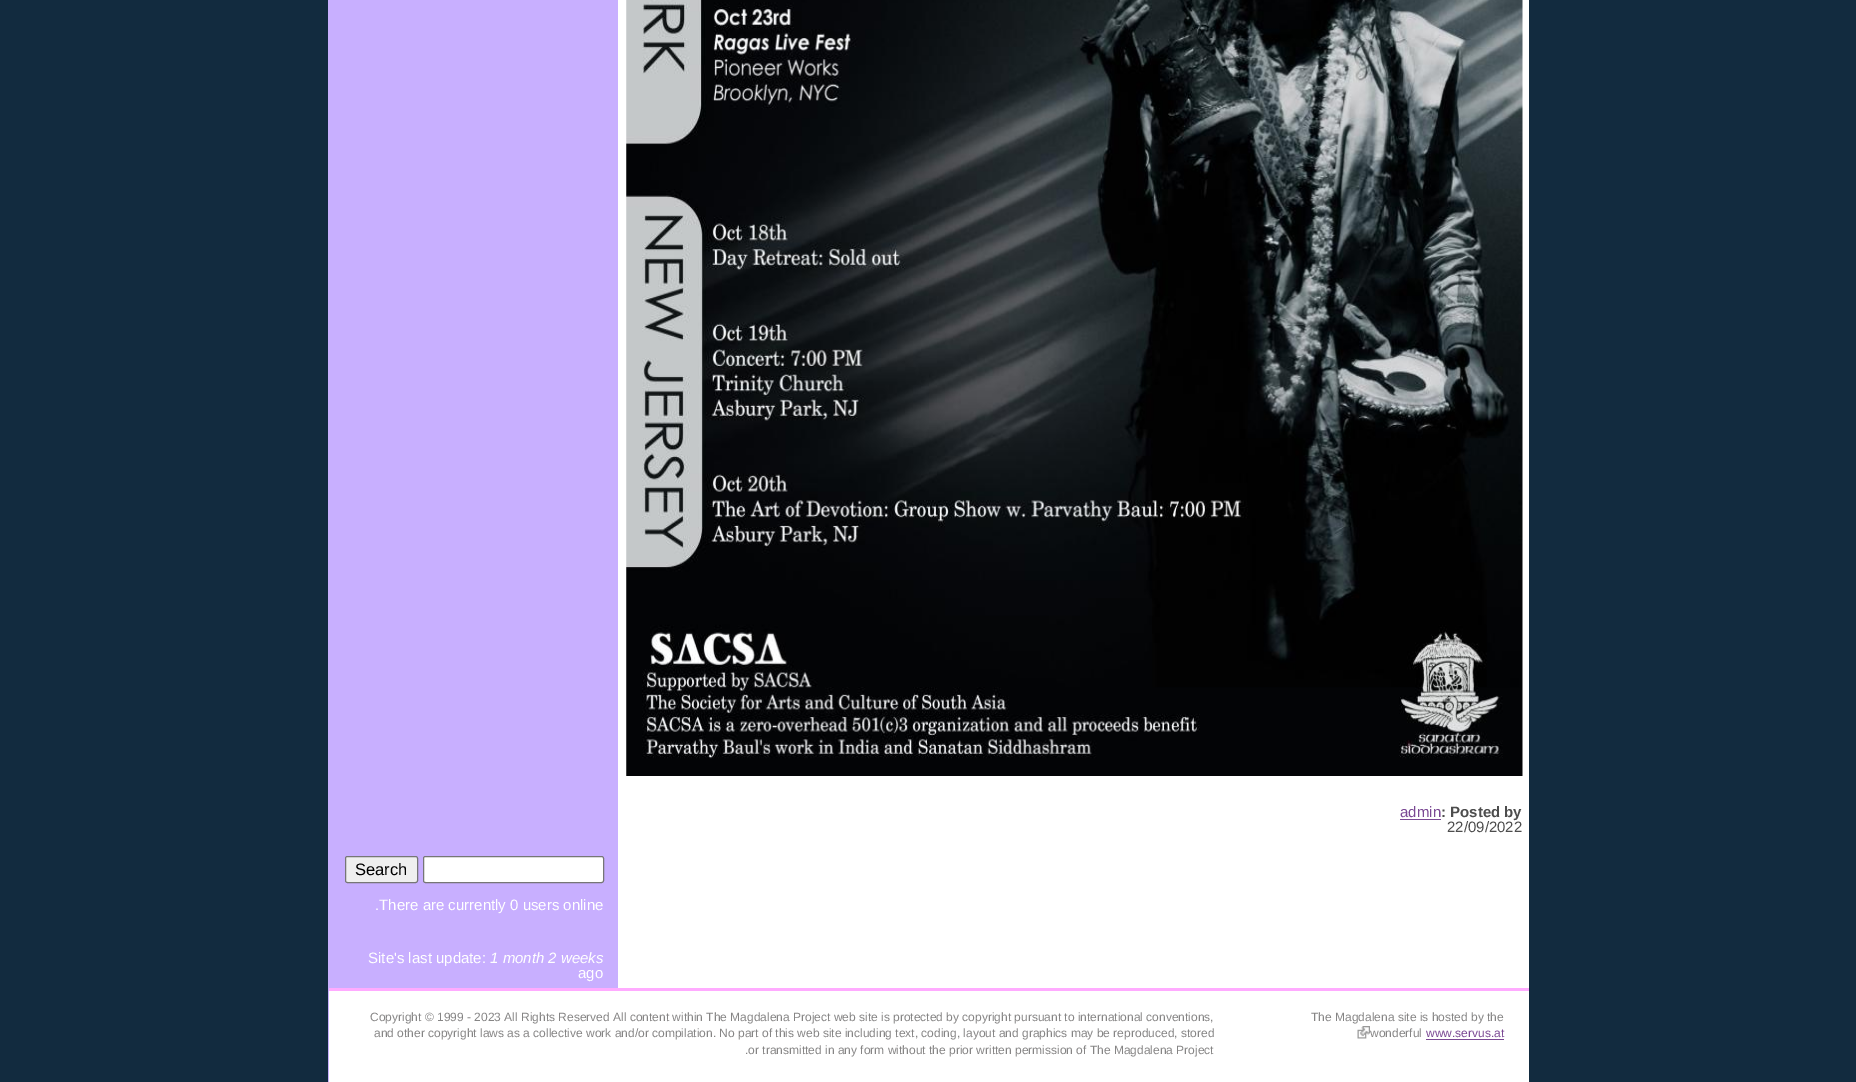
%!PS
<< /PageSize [1856 1082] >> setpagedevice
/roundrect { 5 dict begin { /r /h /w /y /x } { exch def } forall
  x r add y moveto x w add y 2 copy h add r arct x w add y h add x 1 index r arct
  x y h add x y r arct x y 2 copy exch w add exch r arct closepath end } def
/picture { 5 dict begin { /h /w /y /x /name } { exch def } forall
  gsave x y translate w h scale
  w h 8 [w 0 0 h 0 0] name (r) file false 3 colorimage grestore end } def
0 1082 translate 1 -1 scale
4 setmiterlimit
0.071 0.169 0.247 setrgbcolor
0 0 1856 1082 rectfill
1 setgray
618 0 911 988 rectfill
0.784 0.686 1 setrgbcolor
328 0 290 1082 rectfill
(img1.rgb) 626 0 897 776 picture
/LiberationSans-Regular [15 0 0 -15 0 0] selectfont
0.482 0.286 0.58 setrgbcolor
1400 817 moveto (admin) show
1400 819 41 1 rectfill
/LiberationSans-Bold [15 0 0 -15 0 0] selectfont
0.302 setgray
1441 817 moveto (: Posted by) show
/LiberationSans-Regular [15 0 0 -15 0 0] selectfont
1447 832 moveto (22/09/2022) show
0.937 setgray
345.5 856.5 72 26 2 roundrect gsave fill grestore
0.463 setgray
stroke
/LiberationSans-Regular [16.5 0 0 -16.5 0 0] selectfont
0 setgray
355 875 moveto (Search) show
1 setgray
423.5 856.5 180 26 2 roundrect gsave fill grestore
0.463 setgray
stroke
/LiberationSans-Regular [15 0 0 -15 0 0] selectfont
1 setgray
375 910 moveto (.There are currently 0 users online) show
368 963 moveto (Site's last update:) show
/LiberationSans-Italic [15 0 0 -15 0 0] selectfont
490 963 moveto (1 month 2 weeks) show
/LiberationSans-Regular [15 0 0 -15 0 0] selectfont
578 978 moveto (ago) show
329 991 1200 91 rectfill
1 0.671 1 setrgbcolor
329 988 1200 3 rectfill
/LiberationSans-Regular [12 0 0 -12 0 0] selectfont
0.525 0.522 0.522 setrgbcolor
370 1021 moveto (Copyright © 1999 - 2023 All Rights Reserved All content within The Magdalena Project web site is protected by copyright pursuant to international conventions,) show
374 1037 moveto (and other copyright laws as a collective work and/or compilation. No part of this web site including text, coding, layout and graphics may be reproduced, stored) show
745 1054 moveto (.or transmitted in any form without the prior written permission of The Magdalena Project) show
1311 1021 moveto (The Magdalena site is hosted by the) show
(img2.rgb) 1357 1026 13 13 picture
1370 1037 moveto (wonderful) show
0.482 0.286 0.58 setrgbcolor
1426 1037 moveto (www.servus.at) show
1426 1039 78 1 rectfill
showpage
